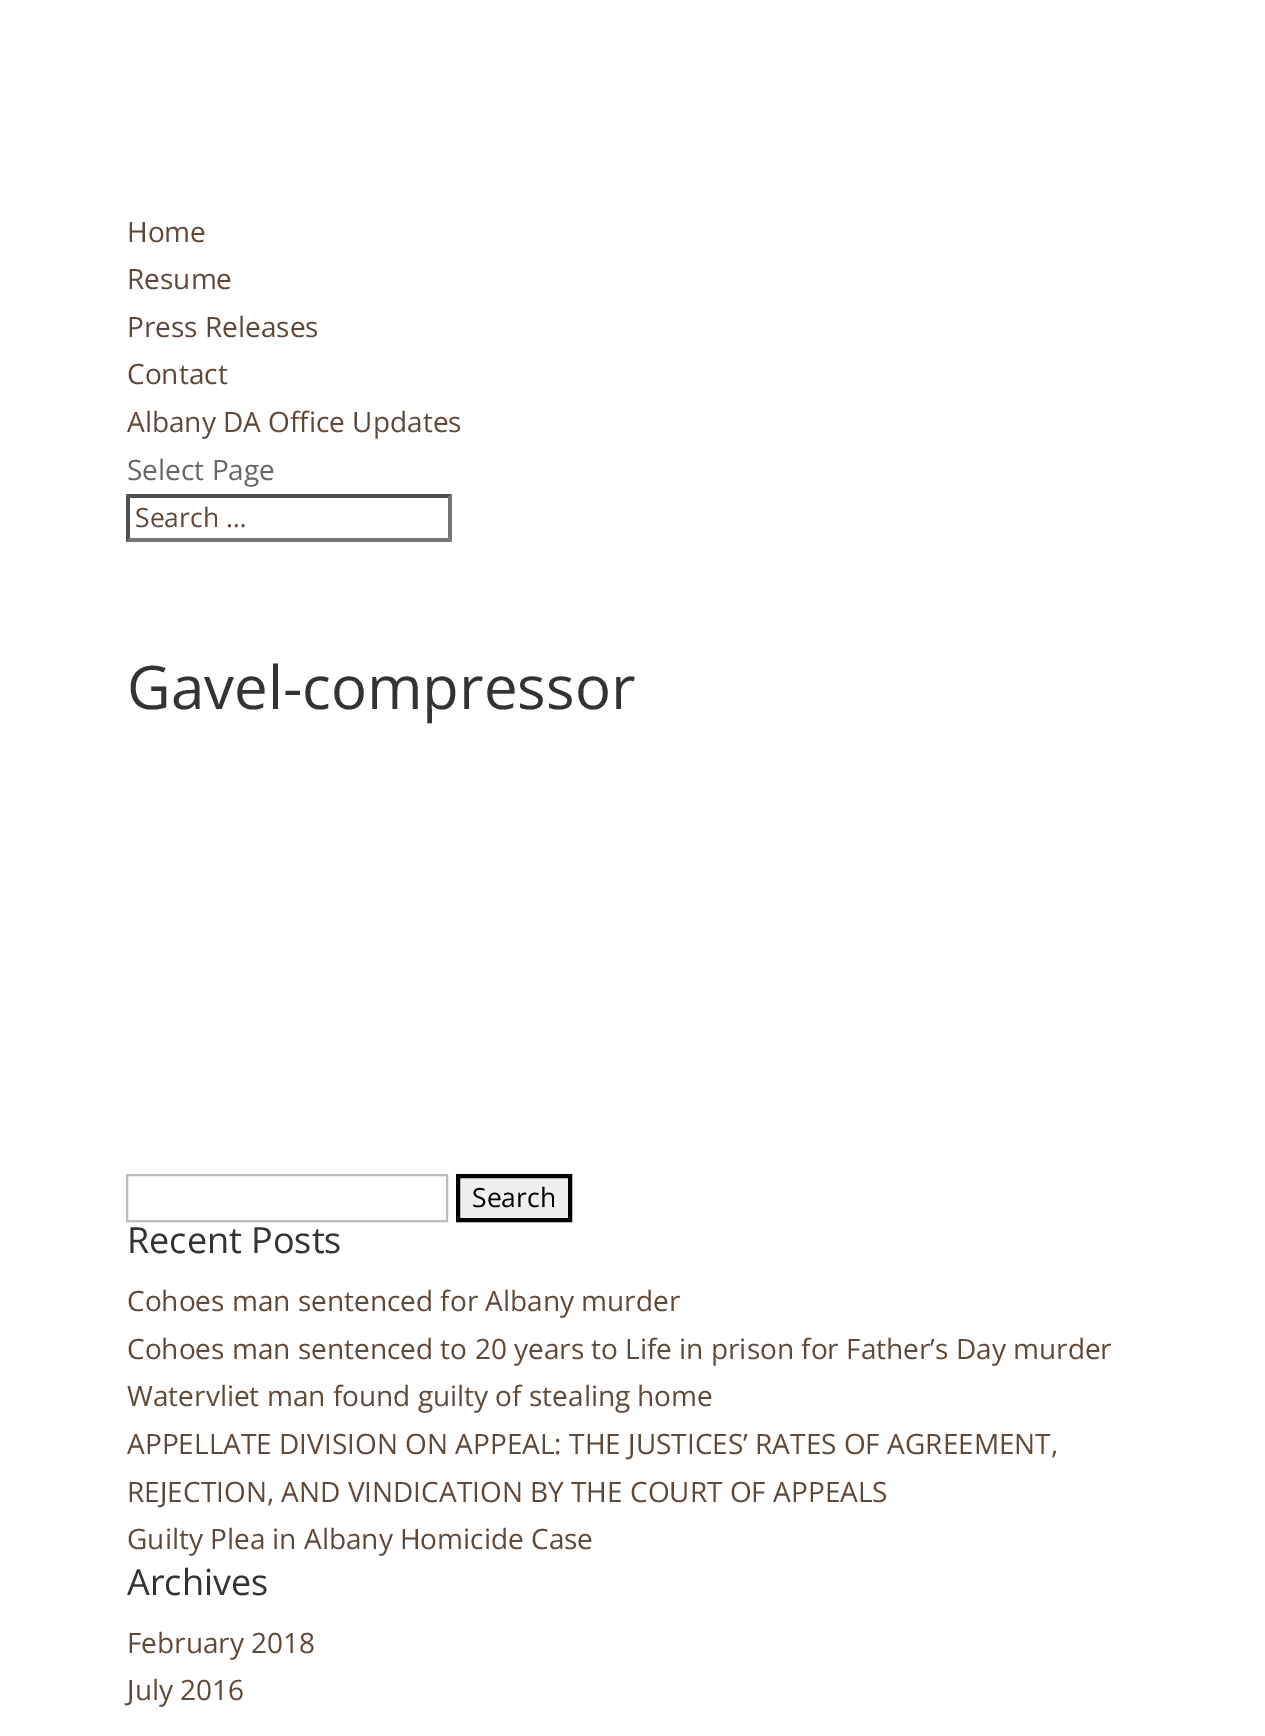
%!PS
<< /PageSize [1265 1736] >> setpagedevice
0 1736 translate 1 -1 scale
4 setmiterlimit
1 setgray
0 0 1265 1736 rectfill
/OpenSans-Regular [28 0 0 -28 0 0] selectfont
0.376 0.282 0.22 setrgbcolor
127 242 moveto (Home) show
127 289 moveto (Resume) show
127 337 moveto (Press Releases) show
127 384 moveto (Contact) show
127 432 moveto (Albany DA Office Updates) show
0.4 setgray
127 480 moveto (Select Page) show
0.31 setgray
newpath 126 494 moveto 452 494 lineto 448 498 lineto 130 498 lineto closepath fill
0.463 setgray
newpath 452 494 moveto 452 542 lineto 448 538 lineto 448 498 lineto closepath fill
newpath 452 542 moveto 126 542 lineto 130 538 lineto 448 538 lineto closepath fill
0.31 setgray
newpath 126 542 moveto 126 494 lineto 130 498 lineto 130 538 lineto closepath fill
/OpenSans-Regular [26.5 0 0 -26.5 0 0] selectfont
0.376 0.282 0.22 setrgbcolor
135 527 moveto (Search …) show
/OpenSans-Regular [60 0 0 -60 0 0] selectfont
0.2 setgray
127 709 moveto (Gavel-compressor) show
0.733 setgray
2 setlinewidth
127 1175 320 46 rectstroke
0.937 setgray
newpath 458 1176 moveto 570 1176 lineto 570 1220 lineto 458 1220 lineto closepath gsave fill grestore
0 setgray
4 setlinewidth
stroke
/OpenSans-Regular [26.5 0 0 -26.5 0 0] selectfont
472 1207 moveto (Search) show
/OpenSans-Regular [36 0 0 -36 0 0] selectfont
0.2 setgray
127 1253 moveto (Recent Posts) show
/OpenSans-Regular [28 0 0 -28 0 0] selectfont
0.376 0.282 0.22 setrgbcolor
127 1311 moveto (Cohoes man sentenced for Albany murder) show
127 1359 moveto (Cohoes man sentenced to 20 years to Life in prison for Father’s Day murder) show
127 1406 moveto (Watervliet man found guilty of stealing home) show
127 1454 moveto (APPELLATE DIVISION ON APPEAL: THE JUSTICES’ RATES OF AGREEMENT,) show
127 1502 moveto (REJECTION, AND VINDICATION BY THE COURT OF APPEALS) show
127 1549 moveto (Guilty Plea in Albany Homicide Case) show
/OpenSans-Regular [36 0 0 -36 0 0] selectfont
0.2 setgray
127 1595 moveto (Archives) show
/OpenSans-Regular [28 0 0 -28 0 0] selectfont
0.376 0.282 0.22 setrgbcolor
127 1653 moveto (February 2018) show
127 1700 moveto (July 2016) show
showpage
